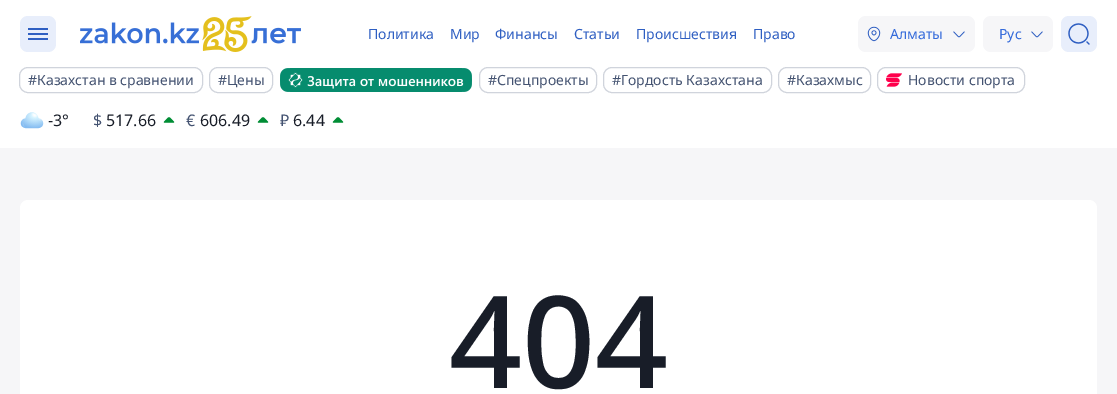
%!PS
<< /PageSize [1117 394] >> setpagedevice
/roundrect { 5 dict begin { /r /h /w /y /x } { exch def } forall
  x r add y moveto x w add y 2 copy h add r arct x w add y h add x 1 index r arct
  x y h add x y r arct x y 2 copy exch w add exch r arct closepath end } def
/picture { 5 dict begin { /h /w /y /x /name } { exch def } forall
  gsave x y translate w h scale
  w h 8 [w 0 0 h 0 0] name (r) file false 3 colorimage grestore end } def
0 394 translate 1 -1 scale
4 setmiterlimit
0.965 0.965 0.973 setrgbcolor
0 0 1117 394 rectfill
1 setgray
0 0 1117 148 rectfill
0.91 0.933 0.984 setrgbcolor
20 16 36 36 8 roundrect fill
0.184 0.373 0.761 setrgbcolor
28 28 20 2 rectfill
28 33 20 2 rectfill
28 38 20 2 rectfill
(img1.rgb) 80 16 221 36 picture
/NotoSans-Regular [14 0 0 -14 0 0] selectfont
368 39 moveto (Политика) show
450 39 moveto (Мир) show
495 39 moveto (Финансы) show
574 39 moveto (Статьи) show
636 39 moveto (Происшествия) show
753 39 moveto (Право) show
0.965 0.965 0.973 setrgbcolor
858 16 117 36 8 roundrect fill
(img2.rgb) 867 26 14 16 picture
0.208 0.42 0.859 setrgbcolor
890 39 moveto (Алматы) show
(img3.rgb) 953 31 12 7 picture
0.965 0.965 0.973 setrgbcolor
983 16 70 36 8 roundrect fill
0.208 0.42 0.859 setrgbcolor
999 39 moveto (Рус) show
(img3.rgb) 1031 31 12 7 picture
0.91 0.933 0.984 setrgbcolor
1061 16 36 36 8 roundrect fill
(img4.rgb) 1068 23 22 22 picture
0.816 0.831 0.863 setrgbcolor
19.5 67.5 183 25 8.5 roundrect stroke
0.267 0.325 0.443 setrgbcolor
28 85 moveto (#Казахстан в сравнении) show
0.816 0.831 0.863 setrgbcolor
209.5 67.5 63 25 8.5 roundrect stroke
0.267 0.325 0.443 setrgbcolor
218 85 moveto (#Цены) show
(img5.rgb) 280 68 192 24 picture
0.816 0.831 0.863 setrgbcolor
479.5 67.5 117 25 8.5 roundrect stroke
0.267 0.325 0.443 setrgbcolor
488 85 moveto (#Спецпроекты) show
0.816 0.831 0.863 setrgbcolor
603.5 67.5 168 25 8.5 roundrect stroke
0.267 0.325 0.443 setrgbcolor
612 85 moveto (#Гордость Казахстана) show
0.816 0.831 0.863 setrgbcolor
778.5 67.5 92 25 8.5 roundrect stroke
0.267 0.325 0.443 setrgbcolor
787 85 moveto (#Казахмыс) show
(img6.rgb) 886 73 16 14 picture
0.816 0.831 0.863 setrgbcolor
877.5 67.5 147 25 8.5 roundrect stroke
0.267 0.325 0.443 setrgbcolor
908 85 moveto (Новости спорта) show
(img7.rgb) 20 112 24 17 picture
/NotoSans-Regular [16 0 0 -16 0 0] selectfont
0.094 0.114 0.157 setrgbcolor
48 126 moveto (-3°) show
0.267 0.325 0.443 setrgbcolor
93 126 moveto ($) show
0.094 0.114 0.157 setrgbcolor
106 126 moveto (517.66) show
(img8.rgb) 163 117 12 6 picture
0.267 0.325 0.443 setrgbcolor
186 126 moveto (€) show
0.094 0.114 0.157 setrgbcolor
200 126 moveto (606.49) show
(img8.rgb) 257 117 12 6 picture
0.267 0.325 0.443 setrgbcolor
280 126 moveto (₽) show
0.094 0.114 0.157 setrgbcolor
293 126 moveto (6.44) show
(img8.rgb) 332 117 12 6 picture
1 setgray
20 200 1077 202 8 roundrect fill
/NotoSans-Medium [128 0 0 -128 0 0] selectfont
0.094 0.114 0.157 setrgbcolor
449 388 moveto (404) show
showpage
